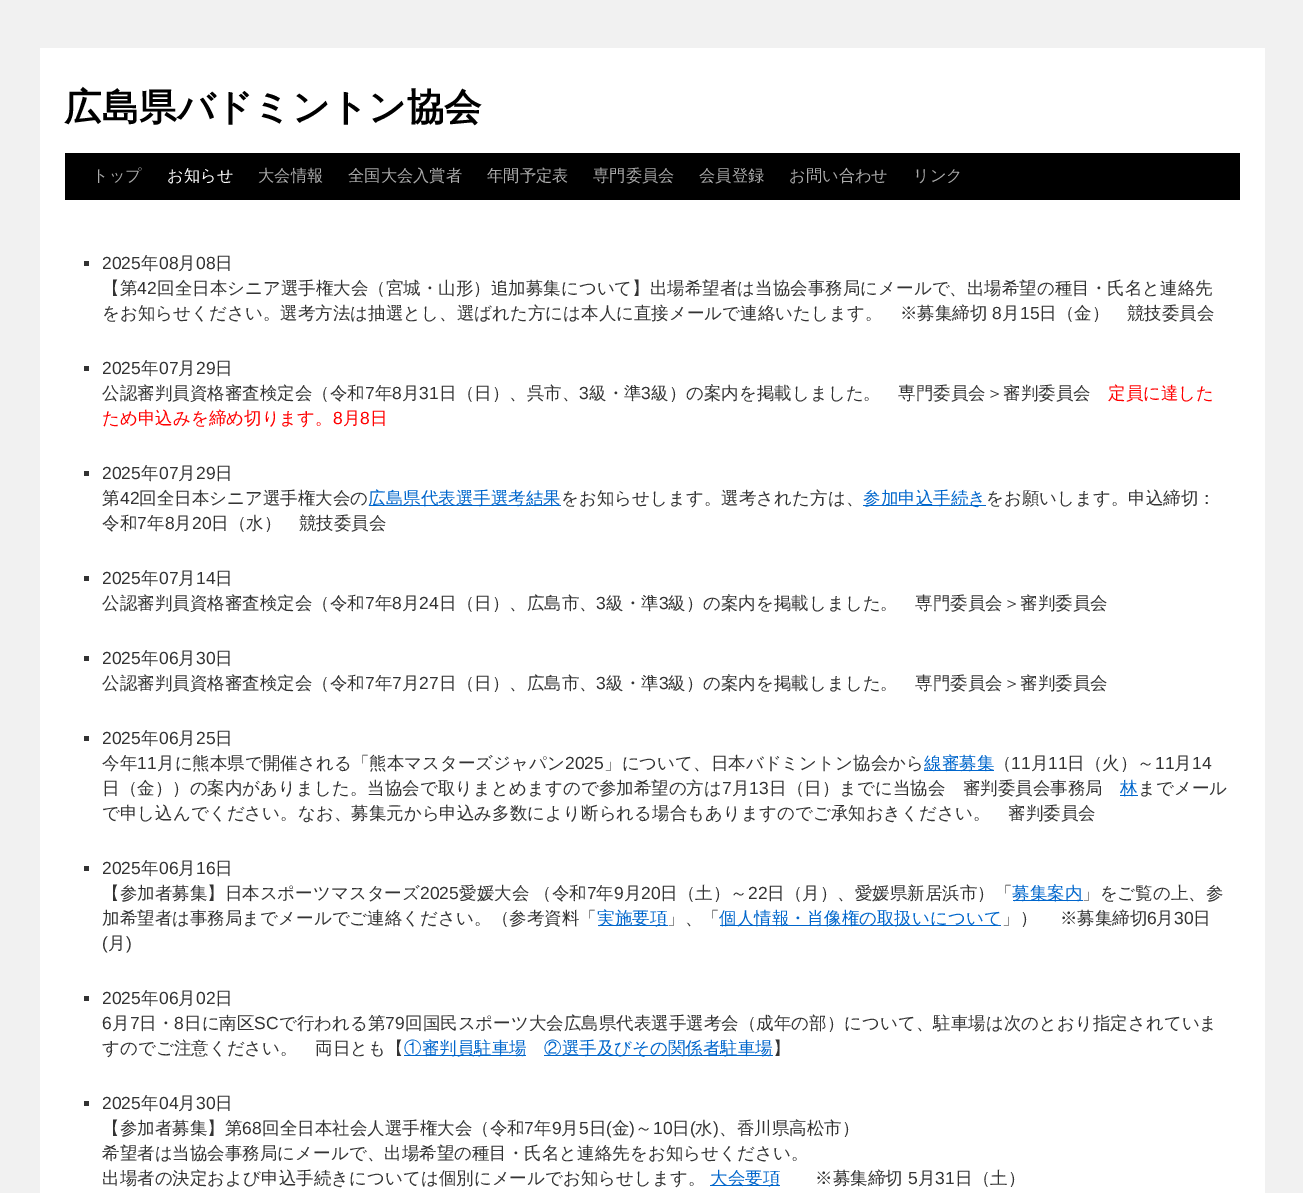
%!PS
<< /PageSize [1303 1193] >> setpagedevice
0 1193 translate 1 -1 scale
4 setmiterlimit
0.945 setgray
0 0 1303 1193 rectfill
1 setgray
40 48 1225 1145 rectfill
/WenQuanYiZenHei-Bold [37.5 0 0 -37.5 0 0] selectfont
0 setgray
64 120 moveto (広島県バドミントン協会) show
65 153 1175 47 rectfill
/WenQuanYiZenHei-Medium [16.25 0 0 -16.25 0 0] selectfont
0.667 setgray
92 181 moveto (トップ) show
1 setgray
167 181 moveto (お知らせ) show
0.667 setgray
258 181 moveto (大会情報) show
348 181 moveto (全国大会入賞者) show
487 181 moveto (年間予定表) show
593 181 moveto (専門委員会) show
699 181 moveto (会員登録) show
789 181 moveto (お問い合わせ) show
913 181 moveto (リンク) show
0.2 setgray
84 261 5 5 rectfill
/LiberationSans-Regular [17.5 0 0 -17.5 0 0] selectfont
102 269 moveto (2025) show
/WenQuanYiZenHei-Medium [17.5 0 0 -17.5 0 0] selectfont
141 269 moveto (年) show
/LiberationSans-Regular [17.5 0 0 -17.5 0 0] selectfont
159 269 moveto (08) show
/WenQuanYiZenHei-Medium [17.5 0 0 -17.5 0 0] selectfont
178 269 moveto (月) show
/LiberationSans-Regular [17.5 0 0 -17.5 0 0] selectfont
196 269 moveto (08) show
/WenQuanYiZenHei-Medium [17.5 0 0 -17.5 0 0] selectfont
215 269 moveto (日) show
102 294 moveto (【第) show
/LiberationSans-Regular [17.5 0 0 -17.5 0 0] selectfont
137 294 moveto (42) show
/WenQuanYiZenHei-Medium [17.5 0 0 -17.5 0 0] selectfont
157 294 moveto (回全日本シニア選手権大会（宮城・山形）追加募集について】出場希望者は当協会事務局にメールで、出場希望の種目・氏名と連絡先) show
102 319 moveto (をお知らせください。選考方法は抽選とし、選ばれた方には本人に直接メールで連絡いたします。　※募集締切) show
/LiberationSans-Regular [17.5 0 0 -17.5 0 0] selectfont
992 319 moveto (8) show
/WenQuanYiZenHei-Medium [17.5 0 0 -17.5 0 0] selectfont
1002 319 moveto (月) show
/LiberationSans-Regular [17.5 0 0 -17.5 0 0] selectfont
1020 319 moveto (15) show
/WenQuanYiZenHei-Medium [17.5 0 0 -17.5 0 0] selectfont
1039 319 moveto (日（金）　競技委員会) show
84 366 5 5 rectfill
/LiberationSans-Regular [17.5 0 0 -17.5 0 0] selectfont
102 374 moveto (2025) show
/WenQuanYiZenHei-Medium [17.5 0 0 -17.5 0 0] selectfont
141 374 moveto (年) show
/LiberationSans-Regular [17.5 0 0 -17.5 0 0] selectfont
159 374 moveto (07) show
/WenQuanYiZenHei-Medium [17.5 0 0 -17.5 0 0] selectfont
178 374 moveto (月) show
/LiberationSans-Regular [17.5 0 0 -17.5 0 0] selectfont
196 374 moveto (29) show
/WenQuanYiZenHei-Medium [17.5 0 0 -17.5 0 0] selectfont
215 374 moveto (日) show
102 399 moveto (公認審判員資格審査検定会（令和) show
/LiberationSans-Regular [17.5 0 0 -17.5 0 0] selectfont
365 399 moveto (7) show
/WenQuanYiZenHei-Medium [17.5 0 0 -17.5 0 0] selectfont
375 399 moveto (年) show
/LiberationSans-Regular [17.5 0 0 -17.5 0 0] selectfont
392 399 moveto (8) show
/WenQuanYiZenHei-Medium [17.5 0 0 -17.5 0 0] selectfont
402 399 moveto (月) show
/LiberationSans-Regular [17.5 0 0 -17.5 0 0] selectfont
419 399 moveto (31) show
/WenQuanYiZenHei-Medium [17.5 0 0 -17.5 0 0] selectfont
439 399 moveto (日（日）、呉市、) show
/LiberationSans-Regular [17.5 0 0 -17.5 0 0] selectfont
579 399 moveto (3) show
/WenQuanYiZenHei-Medium [17.5 0 0 -17.5 0 0] selectfont
589 399 moveto (級・準) show
/LiberationSans-Regular [17.5 0 0 -17.5 0 0] selectfont
641 399 moveto (3) show
/WenQuanYiZenHei-Medium [17.5 0 0 -17.5 0 0] selectfont
651 399 moveto (級）の案内を掲載しました。　専門委員会＞審判委員会) show
1 0 0 setrgbcolor
1108 399 moveto (定員に達した) show
102 424 moveto (ため申込みを締め切ります。) show
/LiberationSans-Regular [17.5 0 0 -17.5 0 0] selectfont
333 424 moveto (8) show
/WenQuanYiZenHei-Medium [17.5 0 0 -17.5 0 0] selectfont
343 424 moveto (月) show
/LiberationSans-Regular [17.5 0 0 -17.5 0 0] selectfont
360 424 moveto (8) show
/WenQuanYiZenHei-Medium [17.5 0 0 -17.5 0 0] selectfont
370 424 moveto (日) show
0.2 setgray
84 471 5 5 rectfill
/LiberationSans-Regular [17.5 0 0 -17.5 0 0] selectfont
102 479 moveto (2025) show
/WenQuanYiZenHei-Medium [17.5 0 0 -17.5 0 0] selectfont
141 479 moveto (年) show
/LiberationSans-Regular [17.5 0 0 -17.5 0 0] selectfont
159 479 moveto (07) show
/WenQuanYiZenHei-Medium [17.5 0 0 -17.5 0 0] selectfont
178 479 moveto (月) show
/LiberationSans-Regular [17.5 0 0 -17.5 0 0] selectfont
196 479 moveto (29) show
/WenQuanYiZenHei-Medium [17.5 0 0 -17.5 0 0] selectfont
215 479 moveto (日) show
102 504 moveto (第) show
/LiberationSans-Regular [17.5 0 0 -17.5 0 0] selectfont
120 504 moveto (42) show
/WenQuanYiZenHei-Medium [17.5 0 0 -17.5 0 0] selectfont
139 504 moveto (回全日本シニア選手権大会の) show
0 0.4 0.8 setrgbcolor
369 505 192 1 rectfill
368 504 moveto (広島県代表選手選考結果) show
0.2 setgray
561 504 moveto (をお知らせします。選考された方は、) show
0 0.4 0.8 setrgbcolor
863 505 123 1 rectfill
863 504 moveto (参加申込手続き) show
0.2 setgray
986 504 moveto (をお願いします。申込締切：) show
102 529 moveto (令和) show
/LiberationSans-Regular [17.5 0 0 -17.5 0 0] selectfont
137 529 moveto (7) show
/WenQuanYiZenHei-Medium [17.5 0 0 -17.5 0 0] selectfont
147 529 moveto (年) show
/LiberationSans-Regular [17.5 0 0 -17.5 0 0] selectfont
165 529 moveto (8) show
/WenQuanYiZenHei-Medium [17.5 0 0 -17.5 0 0] selectfont
174 529 moveto (月) show
/LiberationSans-Regular [17.5 0 0 -17.5 0 0] selectfont
192 529 moveto (20) show
/WenQuanYiZenHei-Medium [17.5 0 0 -17.5 0 0] selectfont
211 529 moveto (日（水）　競技委員会) show
84 576 5 5 rectfill
/LiberationSans-Regular [17.5 0 0 -17.5 0 0] selectfont
102 584 moveto (2025) show
/WenQuanYiZenHei-Medium [17.5 0 0 -17.5 0 0] selectfont
141 584 moveto (年) show
/LiberationSans-Regular [17.5 0 0 -17.5 0 0] selectfont
159 584 moveto (07) show
/WenQuanYiZenHei-Medium [17.5 0 0 -17.5 0 0] selectfont
178 584 moveto (月) show
/LiberationSans-Regular [17.5 0 0 -17.5 0 0] selectfont
196 584 moveto (14) show
/WenQuanYiZenHei-Medium [17.5 0 0 -17.5 0 0] selectfont
215 584 moveto (日) show
102 609 moveto (公認審判員資格審査検定会（令和) show
/LiberationSans-Regular [17.5 0 0 -17.5 0 0] selectfont
365 609 moveto (7) show
/WenQuanYiZenHei-Medium [17.5 0 0 -17.5 0 0] selectfont
375 609 moveto (年) show
/LiberationSans-Regular [17.5 0 0 -17.5 0 0] selectfont
392 609 moveto (8) show
/WenQuanYiZenHei-Medium [17.5 0 0 -17.5 0 0] selectfont
402 609 moveto (月) show
/LiberationSans-Regular [17.5 0 0 -17.5 0 0] selectfont
419 609 moveto (24) show
/WenQuanYiZenHei-Medium [17.5 0 0 -17.5 0 0] selectfont
439 609 moveto (日（日）、広島市、) show
/LiberationSans-Regular [17.5 0 0 -17.5 0 0] selectfont
596 609 moveto (3) show
/WenQuanYiZenHei-Medium [17.5 0 0 -17.5 0 0] selectfont
606 609 moveto (級・準) show
/LiberationSans-Regular [17.5 0 0 -17.5 0 0] selectfont
659 609 moveto (3) show
/WenQuanYiZenHei-Medium [17.5 0 0 -17.5 0 0] selectfont
668 609 moveto (級）の案内を掲載しました。　専門委員会＞審判委員会) show
84 656 5 5 rectfill
/LiberationSans-Regular [17.5 0 0 -17.5 0 0] selectfont
102 664 moveto (2025) show
/WenQuanYiZenHei-Medium [17.5 0 0 -17.5 0 0] selectfont
141 664 moveto (年) show
/LiberationSans-Regular [17.5 0 0 -17.5 0 0] selectfont
159 664 moveto (06) show
/WenQuanYiZenHei-Medium [17.5 0 0 -17.5 0 0] selectfont
178 664 moveto (月) show
/LiberationSans-Regular [17.5 0 0 -17.5 0 0] selectfont
196 664 moveto (30) show
/WenQuanYiZenHei-Medium [17.5 0 0 -17.5 0 0] selectfont
215 664 moveto (日) show
102 689 moveto (公認審判員資格審査検定会（令和) show
/LiberationSans-Regular [17.5 0 0 -17.5 0 0] selectfont
365 689 moveto (7) show
/WenQuanYiZenHei-Medium [17.5 0 0 -17.5 0 0] selectfont
375 689 moveto (年) show
/LiberationSans-Regular [17.5 0 0 -17.5 0 0] selectfont
392 689 moveto (7) show
/WenQuanYiZenHei-Medium [17.5 0 0 -17.5 0 0] selectfont
402 689 moveto (月) show
/LiberationSans-Regular [17.5 0 0 -17.5 0 0] selectfont
419 689 moveto (27) show
/WenQuanYiZenHei-Medium [17.5 0 0 -17.5 0 0] selectfont
439 689 moveto (日（日）、広島市、) show
/LiberationSans-Regular [17.5 0 0 -17.5 0 0] selectfont
596 689 moveto (3) show
/WenQuanYiZenHei-Medium [17.5 0 0 -17.5 0 0] selectfont
606 689 moveto (級・準) show
/LiberationSans-Regular [17.5 0 0 -17.5 0 0] selectfont
659 689 moveto (3) show
/WenQuanYiZenHei-Medium [17.5 0 0 -17.5 0 0] selectfont
668 689 moveto (級）の案内を掲載しました。　専門委員会＞審判委員会) show
84 736 5 5 rectfill
/LiberationSans-Regular [17.5 0 0 -17.5 0 0] selectfont
102 744 moveto (2025) show
/WenQuanYiZenHei-Medium [17.5 0 0 -17.5 0 0] selectfont
141 744 moveto (年) show
/LiberationSans-Regular [17.5 0 0 -17.5 0 0] selectfont
159 744 moveto (06) show
/WenQuanYiZenHei-Medium [17.5 0 0 -17.5 0 0] selectfont
178 744 moveto (月) show
/LiberationSans-Regular [17.5 0 0 -17.5 0 0] selectfont
196 744 moveto (25) show
/WenQuanYiZenHei-Medium [17.5 0 0 -17.5 0 0] selectfont
215 744 moveto (日) show
102 769 moveto (今年) show
/LiberationSans-Regular [17.5 0 0 -17.5 0 0] selectfont
137 769 moveto (11) show
/WenQuanYiZenHei-Medium [17.5 0 0 -17.5 0 0] selectfont
157 769 moveto (月に熊本県で開催される「熊本マスターズジャパン) show
/LiberationSans-Regular [17.5 0 0 -17.5 0 0] selectfont
565 769 moveto (2025) show
/WenQuanYiZenHei-Medium [17.5 0 0 -17.5 0 0] selectfont
604 769 moveto (」について、日本バドミントン協会から) show
0 0.4 0.8 setrgbcolor
924 770 70 1 rectfill
924 769 moveto (線審募集) show
0.2 setgray
994 769 moveto (（) show
/LiberationSans-Regular [17.5 0 0 -17.5 0 0] selectfont
1011 769 moveto (11) show
/WenQuanYiZenHei-Medium [17.5 0 0 -17.5 0 0] selectfont
1031 769 moveto (月) show
/LiberationSans-Regular [17.5 0 0 -17.5 0 0] selectfont
1048 769 moveto (11) show
/WenQuanYiZenHei-Medium [17.5 0 0 -17.5 0 0] selectfont
1067 769 moveto (日（火）～) show
/LiberationSans-Regular [17.5 0 0 -17.5 0 0] selectfont
1155 769 moveto (11) show
/WenQuanYiZenHei-Medium [17.5 0 0 -17.5 0 0] selectfont
1174 769 moveto (月) show
/LiberationSans-Regular [17.5 0 0 -17.5 0 0] selectfont
1192 769 moveto (14) show
/WenQuanYiZenHei-Medium [17.5 0 0 -17.5 0 0] selectfont
102 794 moveto (日（金））の案内がありました。当協会で取りまとめますので参加希望の方は) show
/LiberationSans-Regular [17.5 0 0 -17.5 0 0] selectfont
722 794 moveto (7) show
/WenQuanYiZenHei-Medium [17.5 0 0 -17.5 0 0] selectfont
732 794 moveto (月) show
/LiberationSans-Regular [17.5 0 0 -17.5 0 0] selectfont
749 794 moveto (13) show
/WenQuanYiZenHei-Medium [17.5 0 0 -17.5 0 0] selectfont
769 794 moveto (日（日）までに当協会　審判委員会事務局) show
0 0.4 0.8 setrgbcolor
1120 795 18 1 rectfill
1120 794 moveto (林) show
0.2 setgray
1138 794 moveto (までメール) show
102 819 moveto (で申し込んでください。なお、募集元から申込み多数により断られる場合もありますのでご承知おきください。　審判委員会) show
84 866 5 5 rectfill
/LiberationSans-Regular [17.5 0 0 -17.5 0 0] selectfont
102 874 moveto (2025) show
/WenQuanYiZenHei-Medium [17.5 0 0 -17.5 0 0] selectfont
141 874 moveto (年) show
/LiberationSans-Regular [17.5 0 0 -17.5 0 0] selectfont
159 874 moveto (06) show
/WenQuanYiZenHei-Medium [17.5 0 0 -17.5 0 0] selectfont
178 874 moveto (月) show
/LiberationSans-Regular [17.5 0 0 -17.5 0 0] selectfont
196 874 moveto (16) show
/WenQuanYiZenHei-Medium [17.5 0 0 -17.5 0 0] selectfont
215 874 moveto (日) show
102 899 moveto (【参加者募集】日本スポーツマスターズ) show
/LiberationSans-Regular [17.5 0 0 -17.5 0 0] selectfont
420 899 moveto (2025) show
/WenQuanYiZenHei-Medium [17.5 0 0 -17.5 0 0] selectfont
459 899 moveto (愛媛大会 （令和) show
/LiberationSans-Regular [17.5 0 0 -17.5 0 0] selectfont
587 899 moveto (7) show
/WenQuanYiZenHei-Medium [17.5 0 0 -17.5 0 0] selectfont
596 899 moveto (年) show
/LiberationSans-Regular [17.5 0 0 -17.5 0 0] selectfont
614 899 moveto (9) show
/WenQuanYiZenHei-Medium [17.5 0 0 -17.5 0 0] selectfont
624 899 moveto (月) show
/LiberationSans-Regular [17.5 0 0 -17.5 0 0] selectfont
641 899 moveto (20) show
/WenQuanYiZenHei-Medium [17.5 0 0 -17.5 0 0] selectfont
660 899 moveto (日（土）～) show
/LiberationSans-Regular [17.5 0 0 -17.5 0 0] selectfont
748 899 moveto (22) show
/WenQuanYiZenHei-Medium [17.5 0 0 -17.5 0 0] selectfont
767 899 moveto (日（月）、愛媛県新居浜市）「) show
0 0.4 0.8 setrgbcolor
1013 900 70 1 rectfill
1012 899 moveto (募集案内) show
0.2 setgray
1082 899 moveto (」をご覧の上、参) show
102 924 moveto (加希望者は事務局までメールでご連絡ください。（参考資料「) show
0 0.4 0.8 setrgbcolor
598 925 70 1 rectfill
597 924 moveto (実施要項) show
0.2 setgray
667 924 moveto (」、「) show
0 0.4 0.8 setrgbcolor
720 925 281 1 rectfill
719 924 moveto (個人情報・肖像権の取扱いについて) show
0.2 setgray
1002 924 moveto (」）　 ※募集締切) show
/LiberationSans-Regular [17.5 0 0 -17.5 0 0] selectfont
1147 924 moveto (6) show
/WenQuanYiZenHei-Medium [17.5 0 0 -17.5 0 0] selectfont
1156 924 moveto (月) show
/LiberationSans-Regular [17.5 0 0 -17.5 0 0] selectfont
1174 924 moveto (30) show
/WenQuanYiZenHei-Medium [17.5 0 0 -17.5 0 0] selectfont
1193 924 moveto (日) show
/LiberationSans-Regular [17.5 0 0 -17.5 0 0] selectfont
102 949 moveto (\() show
/WenQuanYiZenHei-Medium [17.5 0 0 -17.5 0 0] selectfont
108 949 moveto (月) show
/LiberationSans-Regular [17.5 0 0 -17.5 0 0] selectfont
126 949 moveto (\)) show
84 996 5 5 rectfill
102 1004 moveto (2025) show
/WenQuanYiZenHei-Medium [17.5 0 0 -17.5 0 0] selectfont
141 1004 moveto (年) show
/LiberationSans-Regular [17.5 0 0 -17.5 0 0] selectfont
159 1004 moveto (06) show
/WenQuanYiZenHei-Medium [17.5 0 0 -17.5 0 0] selectfont
178 1004 moveto (月) show
/LiberationSans-Regular [17.5 0 0 -17.5 0 0] selectfont
196 1004 moveto (02) show
/WenQuanYiZenHei-Medium [17.5 0 0 -17.5 0 0] selectfont
215 1004 moveto (日) show
/LiberationSans-Regular [17.5 0 0 -17.5 0 0] selectfont
102 1029 moveto (6) show
/WenQuanYiZenHei-Medium [17.5 0 0 -17.5 0 0] selectfont
112 1029 moveto (月) show
/LiberationSans-Regular [17.5 0 0 -17.5 0 0] selectfont
130 1029 moveto (7) show
/WenQuanYiZenHei-Medium [17.5 0 0 -17.5 0 0] selectfont
139 1029 moveto (日・) show
/LiberationSans-Regular [17.5 0 0 -17.5 0 0] selectfont
174 1029 moveto (8) show
/WenQuanYiZenHei-Medium [17.5 0 0 -17.5 0 0] selectfont
184 1029 moveto (日に南区) show
/LiberationSans-Regular [17.5 0 0 -17.5 0 0] selectfont
254 1029 moveto (SC) show
/WenQuanYiZenHei-Medium [17.5 0 0 -17.5 0 0] selectfont
279 1029 moveto (で行われる第) show
/LiberationSans-Regular [17.5 0 0 -17.5 0 0] selectfont
385 1029 moveto (79) show
/WenQuanYiZenHei-Medium [17.5 0 0 -17.5 0 0] selectfont
405 1029 moveto (回国民スポーツ大会広島県代表選手選考会（成年の部）について、駐車場は次のとおり指定されていま) show
102 1054 moveto (すのでご注意ください。　両日とも【) show
0 0.4 0.8 setrgbcolor
404 1055 122 1 rectfill
404 1054 moveto (①審判員駐車場) show
544 1055 229 1 rectfill
544 1054 moveto (②選手及びその関係者駐車場) show
0.2 setgray
773 1054 moveto (】) show
84 1101 5 5 rectfill
/LiberationSans-Regular [17.5 0 0 -17.5 0 0] selectfont
102 1109 moveto (2025) show
/WenQuanYiZenHei-Medium [17.5 0 0 -17.5 0 0] selectfont
141 1109 moveto (年) show
/LiberationSans-Regular [17.5 0 0 -17.5 0 0] selectfont
159 1109 moveto (04) show
/WenQuanYiZenHei-Medium [17.5 0 0 -17.5 0 0] selectfont
178 1109 moveto (月) show
/LiberationSans-Regular [17.5 0 0 -17.5 0 0] selectfont
196 1109 moveto (30) show
/WenQuanYiZenHei-Medium [17.5 0 0 -17.5 0 0] selectfont
215 1109 moveto (日) show
102 1134 moveto (【参加者募集】第) show
/LiberationSans-Regular [17.5 0 0 -17.5 0 0] selectfont
242 1134 moveto (68) show
/WenQuanYiZenHei-Medium [17.5 0 0 -17.5 0 0] selectfont
262 1134 moveto (回全日本社会人選手権大会（令和) show
/LiberationSans-Regular [17.5 0 0 -17.5 0 0] selectfont
524 1134 moveto (7) show
/WenQuanYiZenHei-Medium [17.5 0 0 -17.5 0 0] selectfont
534 1134 moveto (年) show
/LiberationSans-Regular [17.5 0 0 -17.5 0 0] selectfont
552 1134 moveto (9) show
/WenQuanYiZenHei-Medium [17.5 0 0 -17.5 0 0] selectfont
561 1134 moveto (月) show
/LiberationSans-Regular [17.5 0 0 -17.5 0 0] selectfont
579 1134 moveto (5) show
/WenQuanYiZenHei-Medium [17.5 0 0 -17.5 0 0] selectfont
589 1134 moveto (日) show
/LiberationSans-Regular [17.5 0 0 -17.5 0 0] selectfont
606 1134 moveto (\() show
/WenQuanYiZenHei-Medium [17.5 0 0 -17.5 0 0] selectfont
612 1134 moveto (金) show
/LiberationSans-Regular [17.5 0 0 -17.5 0 0] selectfont
629 1134 moveto (\)) show
/WenQuanYiZenHei-Medium [17.5 0 0 -17.5 0 0] selectfont
635 1134 moveto (～) show
/LiberationSans-Regular [17.5 0 0 -17.5 0 0] selectfont
653 1134 moveto (10) show
/WenQuanYiZenHei-Medium [17.5 0 0 -17.5 0 0] selectfont
672 1134 moveto (日) show
/LiberationSans-Regular [17.5 0 0 -17.5 0 0] selectfont
690 1134 moveto (\() show
/WenQuanYiZenHei-Medium [17.5 0 0 -17.5 0 0] selectfont
695 1134 moveto (水) show
/LiberationSans-Regular [17.5 0 0 -17.5 0 0] selectfont
713 1134 moveto (\)) show
/WenQuanYiZenHei-Medium [17.5 0 0 -17.5 0 0] selectfont
719 1134 moveto (、香川県高松市）) show
102 1159 moveto (希望者は当協会事務局にメールで、出場希望の種目・氏名と連絡先をお知らせください。) show
102 1184 moveto (出場者の決定および申込手続きについては個別にメールでお知らせします。) show
0 0.4 0.8 setrgbcolor
710 1185 70 1 rectfill
710 1184 moveto (大会要項) show
0.2 setgray
815 1184 moveto (※募集締切) show
/LiberationSans-Regular [17.5 0 0 -17.5 0 0] selectfont
908 1184 moveto (5) show
/WenQuanYiZenHei-Medium [17.5 0 0 -17.5 0 0] selectfont
918 1184 moveto (月) show
/LiberationSans-Regular [17.5 0 0 -17.5 0 0] selectfont
935 1184 moveto (31) show
/WenQuanYiZenHei-Medium [17.5 0 0 -17.5 0 0] selectfont
955 1184 moveto (日（土）) show
showpage
